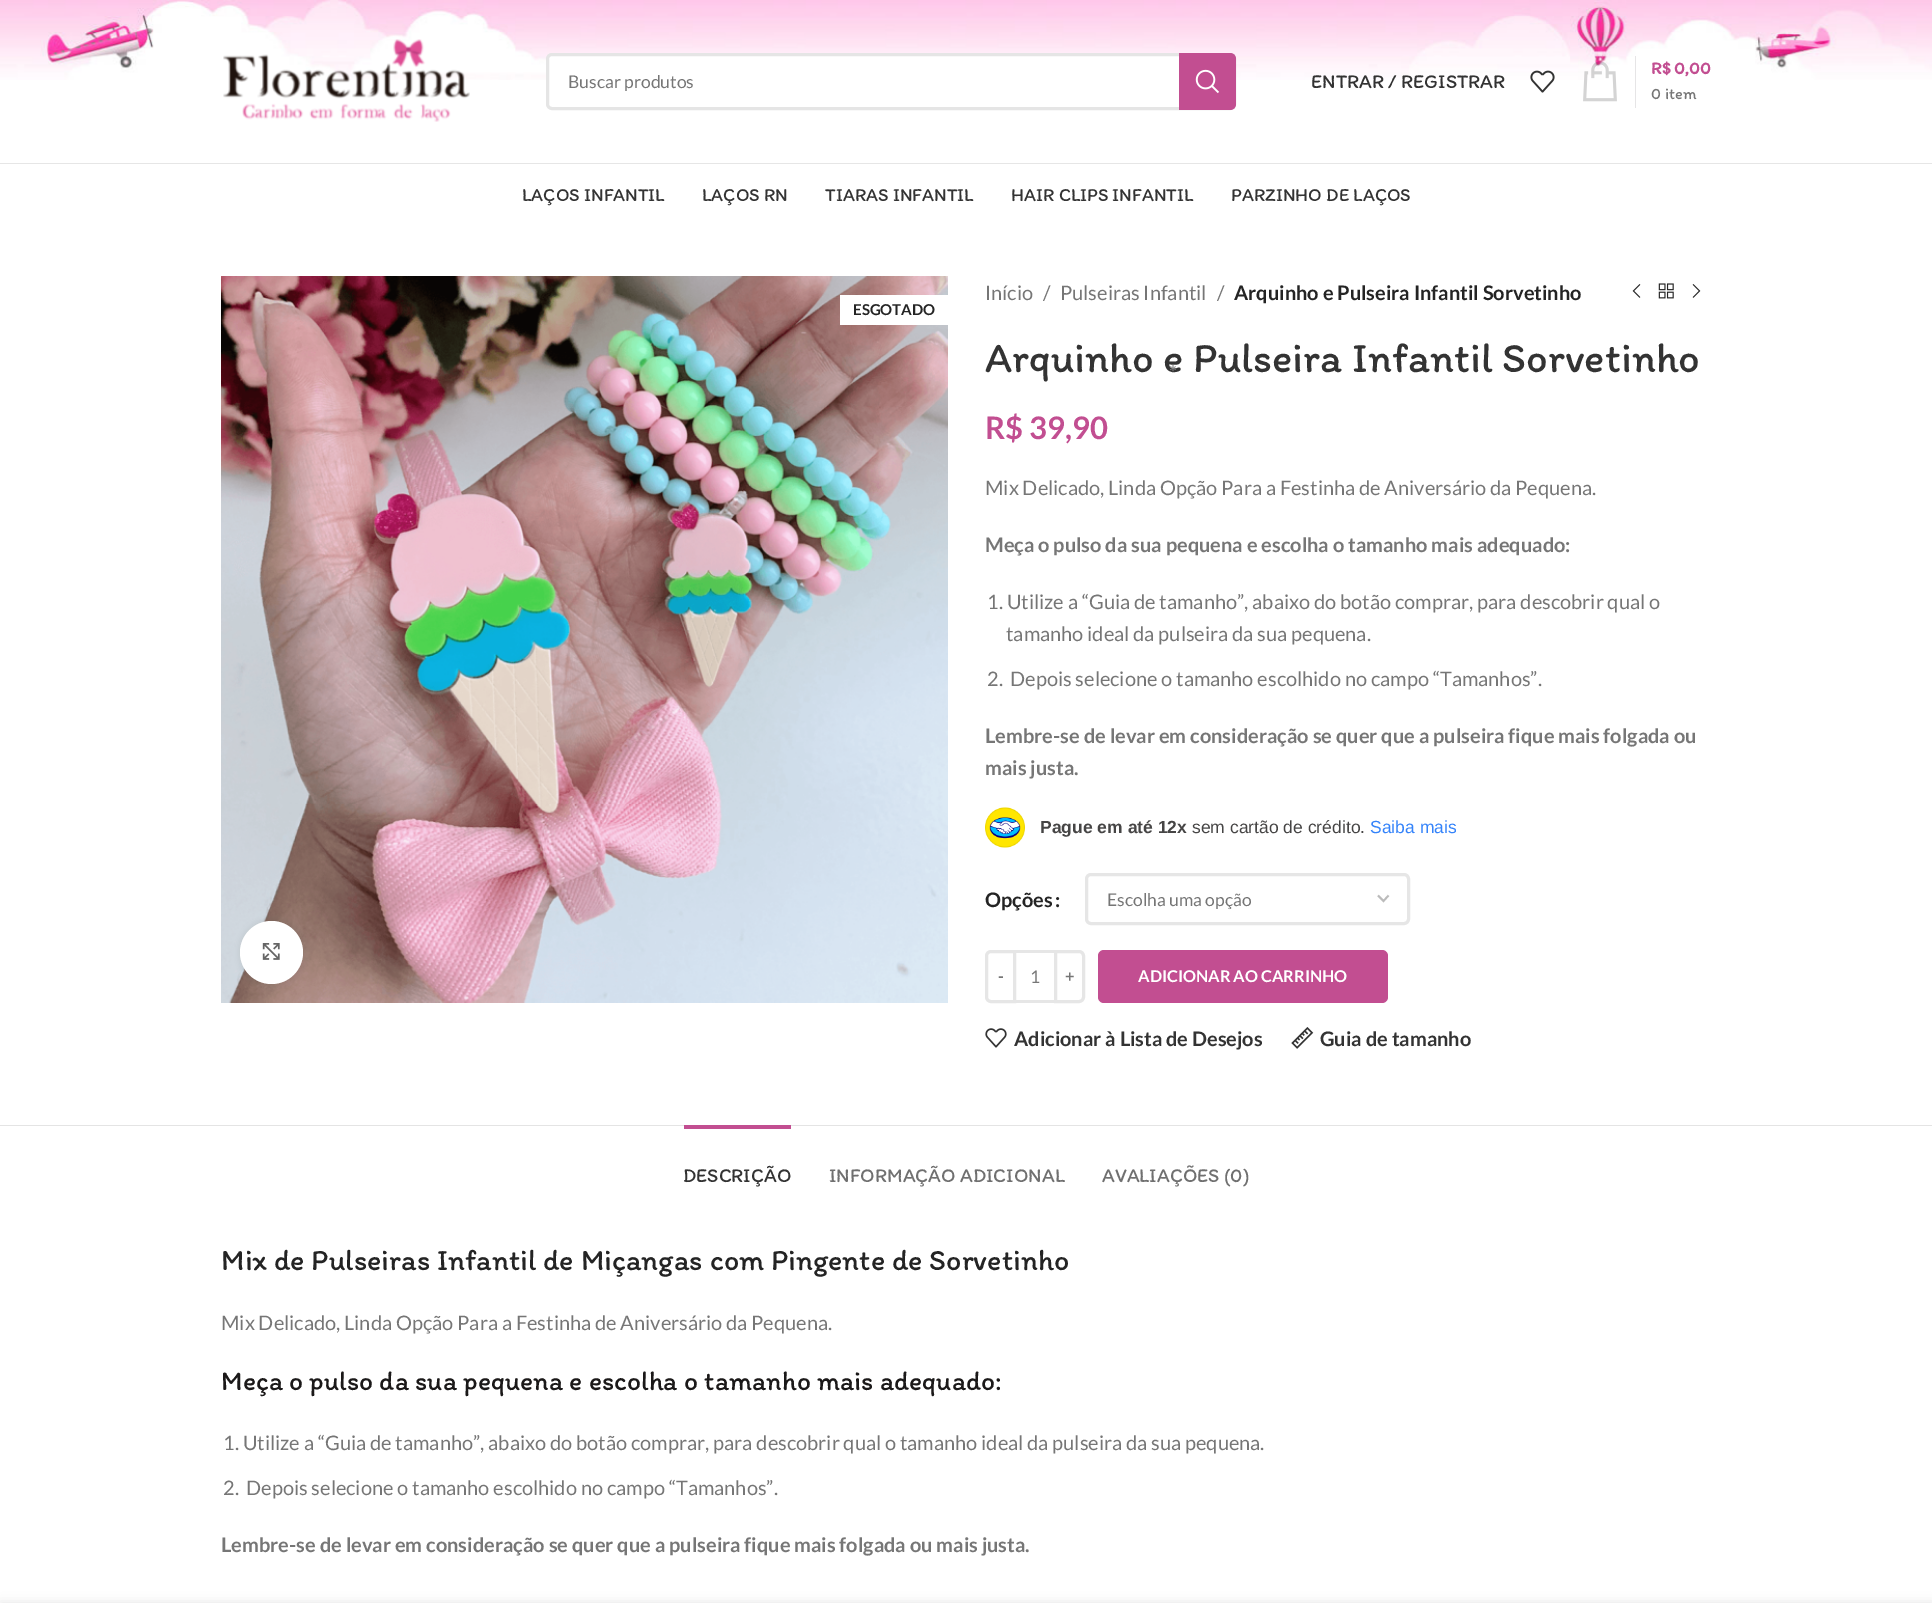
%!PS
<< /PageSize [1932 1603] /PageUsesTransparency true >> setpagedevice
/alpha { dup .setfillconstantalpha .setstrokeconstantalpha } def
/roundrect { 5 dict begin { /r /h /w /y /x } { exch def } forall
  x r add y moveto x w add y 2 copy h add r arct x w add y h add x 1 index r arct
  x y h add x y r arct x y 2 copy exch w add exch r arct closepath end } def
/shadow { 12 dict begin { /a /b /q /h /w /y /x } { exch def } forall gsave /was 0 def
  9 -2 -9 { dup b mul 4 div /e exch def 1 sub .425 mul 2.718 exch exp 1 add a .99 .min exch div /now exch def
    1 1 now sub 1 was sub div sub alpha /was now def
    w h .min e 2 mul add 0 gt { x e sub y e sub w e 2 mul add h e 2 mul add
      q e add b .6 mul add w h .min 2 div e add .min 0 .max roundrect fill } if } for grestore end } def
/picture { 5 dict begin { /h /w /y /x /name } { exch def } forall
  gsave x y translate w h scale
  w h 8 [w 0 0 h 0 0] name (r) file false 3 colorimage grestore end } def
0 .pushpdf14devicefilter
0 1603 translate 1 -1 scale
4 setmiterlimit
1 setgray
0 0 1932 1603 rectfill
(img1.rgb) 0 0 1932 80 picture
0.902 setgray
0 163 1932 1 rectfill
(img2.rgb) 223 39 247 83 picture
1 setgray
546 53 690 57 6 roundrect fill
0.1 alpha
0 setgray
3 setlinewidth
547.5 54.5 687 54 4.5 roundrect stroke
/Lato-Regular [17.5 0 0 -17.5 0 0] selectfont
1 alpha
0.463 setgray
568 88 moveto (Buscar produtos) show
0.761 0.306 0.569 setrgbcolor
newpath 1179 53 moveto 1230 53 lineto 1233.5 53 1236 55.5 1236 59 curveto 1236 104 lineto 1236 107.5 1233.5 110 1230 110 curveto 1179 110 lineto closepath fill
(img3.rgb) 1195 69 24 25 picture
/Itim-Regular [20 0 0 -20 0 0] selectfont
0.2 setgray
1311 88 moveto (ENTRAR / REGISTRAR) show
/Itim-Regular [42.5 0 0 -42.5 0 0] selectfont
985 372 moveto (Arquinho e Pulseira Infantil Sorvetinho) show
/Lato-Regular [20 0 0 -20 0 0] selectfont
0.51 setgray
1169 380 moveto (*) show
(img4.rgb) 1530 70 25 23 picture
(img5.rgb) 1583 61 34 41 picture
0.902 0.898 0.902 setrgbcolor
1635 56 1 52 rectfill
/Itim-Bold [17.5 0 0 -17.5 0 0] selectfont
0.761 0.306 0.569 setrgbcolor
1651 74 moveto (R$ 0,00) show
/Itim-Regular [16.25 0 0 -16.25 0 0] selectfont
0.463 setgray
1651 99 moveto (0 item) show
/Itim-Regular [18.75 0 0 -18.75 0 0] selectfont
0.2 setgray
522 201 moveto (LAÇOS INFANTIL) show
702 201 moveto (LAÇOS RN) show
825 201 moveto (TIARAS INFANTIL) show
1011 201 moveto (HAIR CLIPS INFANTIL) show
1231 201 moveto (PARZINHO DE LAÇOS) show
(img6.rgb) 221 276 727 727 picture
1 setgray
840 295 108 30 rectfill
/Lato-Bold [15 0 0 -15 0 0] selectfont
0.141 setgray
853 315 moveto (ESGOTADO) show
0 setgray
240 921 63 63 31.5 3 0.08 shadow
1 setgray
newpath 271.5 952.5 31.5 0 360 arc closepath fill
(img7.rgb) 262 943 18 17 picture
/Lato-Regular [20 0 0 -20 0 0] selectfont
0.463 setgray
985 300 moveto (Início) show
1043 300 moveto (/) show
1060 300 moveto (Pulseiras Infantil) show
1217 300 moveto (/) show
/Lato-Bold [20 0 0 -20 0 0] selectfont
0.141 setgray
1234 300 moveto (Arquinho e Pulseira Infantil Sorvetinho) show
(img8.rgb) 1632 284 9 14 picture
(img9.rgb) 1658 283 16 16 picture
(img10.rgb) 1692 284 9 14 picture
/Lato-Bold [31 0 0 -31 0 0] selectfont
0.761 0.306 0.569 setrgbcolor
985 439 moveto (R$ 39,90) show
/Lato-Regular [20 0 0 -20 0 0] selectfont
0.463 setgray
985 495 moveto (Mix Delicado, Linda Opção Para a Festinha de Aniversário da Pequena.) show
/Lato-Bold [20 0 0 -20 0 0] selectfont
985 552 moveto (Meça o pulso da sua pequena e escolha o tamanho mais adequado:) show
/Lato-Regular [20 0 0 -20 0 0] selectfont
987 609 moveto (1. Utilize a “Guia de tamanho”, abaixo do botão comprar, para descobrir qual o) show
1006 641 moveto (tamanho ideal da pulseira da sua pequena.) show
987 686 moveto (2.) show
1010 686 moveto (Depois selecione o tamanho escolhido no campo “Tamanhos”.) show
/Lato-Bold [20 0 0 -20 0 0] selectfont
985 743 moveto (Lembre-se de levar em consideração se quer que a pulseira fique mais folgada ou) show
985 775 moveto (mais justa.) show
(img11.rgb) 985 807 40 41 picture
/LiberationSans-Bold [17.5 0 0 -17.5 0 0] selectfont
0.275 0.271 0.271 setrgbcolor
1040 833 moveto (Pague em até 12x) show
/LiberationSans-Regular [17.5 0 0 -17.5 0 0] selectfont
1192 833 moveto (sem cartão de crédito.) show
0.204 0.514 0.98 setrgbcolor
1370 833 moveto (Saiba mais) show
/Lato-Bold [20 0 0 -20 0 0] selectfont
0.141 setgray
985 907 moveto (Opções) show
1055 907 moveto (:) show
0.733 setgray
1.8 setlinewidth
newpath 1378 895.5 moveto 1383.5 901 lineto 1388.5 895.5 lineto stroke
0.902 setgray
3 setlinewidth
1086.5 874.5 322 49 4.5 roundrect stroke
/Lato-Regular [17.5 0 0 -17.5 0 0] selectfont
0.463 setgray
1107 906 moveto (Escolha uma opção) show
0.902 setgray
newpath 991 951.5 moveto 1014.5 951.5 lineto 1014.5 1001.5 lineto 991 1001.5 lineto 988.5 1001.5 986.5 999.5 986.5 997 curveto 986.5 956 lineto 986.5 953.5 988.5 951.5 991 951.5 curveto closepath stroke
/Lato-Bold [16.25 0 0 -16.25 0 0] selectfont
0.463 setgray
998 982 moveto (-) show
0.902 setgray
1016 950 38 3 rectfill
1016 1000 38 3 rectfill
/Lato-Regular [17.5 0 0 -17.5 0 0] selectfont
0.463 setgray
1030 983 moveto (1) show
0.902 setgray
newpath 1055.5 951.5 moveto 1079 951.5 lineto 1081.5 951.5 1083.5 953.5 1083.5 956 curveto 1083.5 997 lineto 1083.5 999.5 1081.5 1001.5 1079 1001.5 curveto 1055.5 1001.5 lineto closepath stroke
/Lato-Bold [16.25 0 0 -16.25 0 0] selectfont
0.463 setgray
1065 982 moveto (+) show
0.761 0.306 0.569 setrgbcolor
1098 950 290 53 6 roundrect fill
1 setgray
1138 982 moveto (ADICIONAR AO CARRINHO) show
(img12.rgb) 985 1028 22 20 picture
/Lato-Bold [20 0 0 -20 0 0] selectfont
0.2 setgray
1014 1046 moveto (Adicionar à Lista de Desejos) show
(img13.rgb) 1291 1027 23 22 picture
1320 1046 moveto (Guia de tamanho) show
0.894 setgray
0 1125 1932 1 rectfill
0.761 0.306 0.569 setrgbcolor
684 1125 107 4 rectfill
/Itim-Regular [20 0 0 -20 0 0] selectfont
0.2 setgray
683 1182 moveto (DESCRIÇÃO) show
0.439 setgray
829 1182 moveto (INFORMAÇÃO ADICIONAL) show
1102 1182 moveto (AVALIAÇÕES \(0\)) show
/Itim-Regular [30 0 0 -30 0 0] selectfont
0.141 setgray
221 1270 moveto (Mix de Pulseiras Infantil de Miçangas com Pingente de Sorvetinho) show
/Lato-Regular [20 0 0 -20 0 0] selectfont
0.463 setgray
221 1330 moveto (Mix Delicado, Linda Opção Para a Festinha de Aniversário da Pequena.) show
/Itim-Regular [27.5 0 0 -27.5 0 0] selectfont
0.106 0.098 0.098 setrgbcolor
221 1390 moveto (Meça o pulso da sua pequena e escolha o tamanho mais adequado:) show
/Lato-Regular [20 0 0 -20 0 0] selectfont
0.463 setgray
223 1450 moveto (1. Utilize a “Guia de tamanho”, abaixo do botão comprar, para descobrir qual o tamanho ideal da pulseira da sua pequena.) show
223 1495 moveto (2.) show
246 1495 moveto (Depois selecione o tamanho escolhido no campo “Tamanhos”.) show
/Lato-Bold [20 0 0 -20 0 0] selectfont
221 1552 moveto (Lembre-se de levar em consideração se quer que a pulseira fique mais folgada ou mais justa.) show
0 setgray
0 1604 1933 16 0 5.5 0.14 shadow
.poppdf14devicefilter showpage
